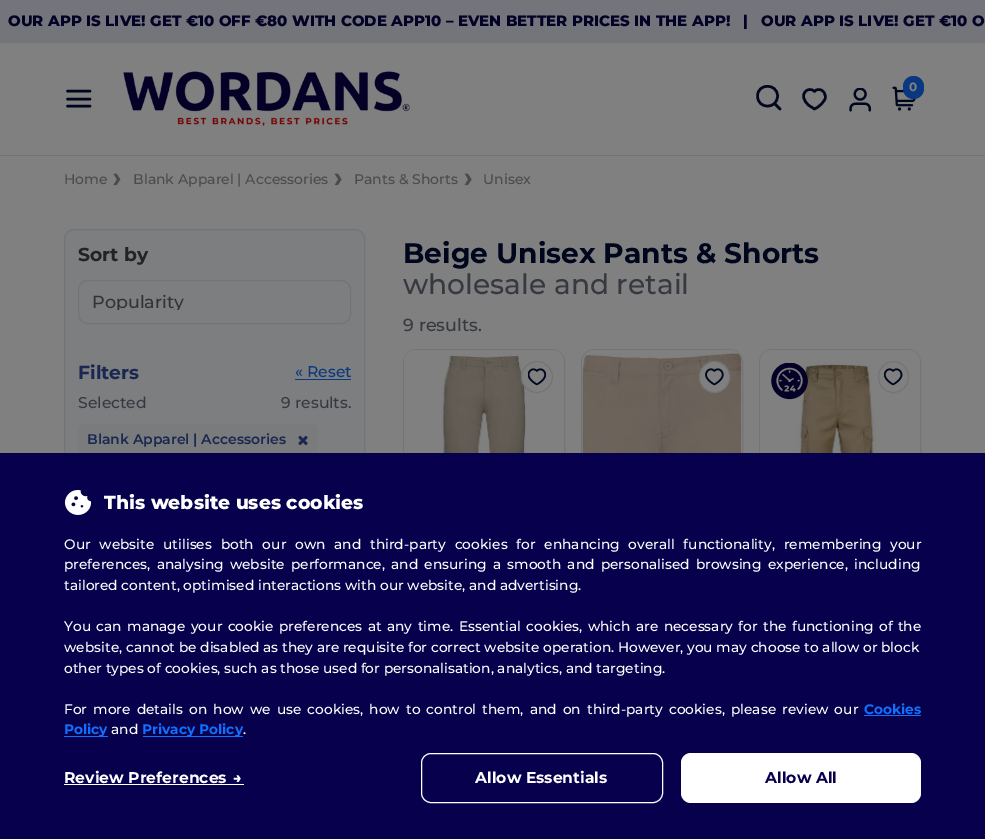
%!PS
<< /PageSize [985 839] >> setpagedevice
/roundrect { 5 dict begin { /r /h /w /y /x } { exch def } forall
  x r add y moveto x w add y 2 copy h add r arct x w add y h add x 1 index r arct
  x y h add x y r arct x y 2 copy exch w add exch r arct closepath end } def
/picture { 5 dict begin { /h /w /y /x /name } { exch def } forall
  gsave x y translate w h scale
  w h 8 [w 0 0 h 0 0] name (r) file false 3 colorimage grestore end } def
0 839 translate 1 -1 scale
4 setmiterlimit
0.502 setgray
0 0 985 839 rectfill
0.451 0.459 0.478 setrgbcolor
0 0 985 43 rectfill
/Montserrat-ExtraBold [15 0 0 -15 0 0] selectfont
0.016 0.004 0.149 setrgbcolor
8 26 moveto (OUR APP IS LIVE! GET €10 OFF €80 WITH CODE APP10 – EVEN BETTER PRICES IN THE APP!) show
743 26 moveto (|) show
761 26 moveto (OUR APP IS LIVE! GET €10 O) show
0 0.027 0.114 setrgbcolor
2.5 setlinewidth
1 setlinecap
1 setlinejoin
newpath 67.5 99 moveto 90 99 lineto 67.5 91 moveto 90 91 lineto 67.5 106 moveto 90 106 lineto stroke
(img1.rgb) 123 71 287 55 picture
newpath 780 109 moveto 774.5 103.5 lineto 777.5 96 moveto 777.5 109.5 757.5 109.5 757.5 96 curveto 757.5 83 777.5 83 777.5 96 curveto closepath stroke
newpath 819 89.5 moveto 823.5 89.5 826.5 95 825 99 curveto 823.5 102.5 820.5 105 818 107 curveto 814.5 109 lineto 809 105.5 lineto 796.5 95 808.5 85 814.5 91.5 curveto 815 90.5 816.5 89.5 819 89.5 curveto closepath stroke
(img2.rgb) 849 88 22 24 picture
(img3.rgb) 892 86 25 25 picture
0.035 0.22 0.502 setrgbcolor
903 76 21 23 10.5 roundrect fill
/Montserrat-Bold [12 0 0 -12 0 0] selectfont
0.502 setgray
909 91 moveto (0) show
0.451 0.455 0.463 setrgbcolor
0 155 985 1 rectfill
/Montserrat-Medium [14 0 0 -14 0 0] selectfont
0.294 setgray
64 184 moveto (Home) show
(img4.rgb) 113 173 8 13 picture
133 184 moveto (Blank Apparel | Accessories) show
(img5.rgb) 334 173 8 13 picture
354 184 moveto (Pants & Shorts) show
(img5.rgb) 464 173 8 13 picture
483 184 moveto (Unisex) show
0.49 0.494 0.498 setrgbcolor
64.5 229.5 300 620 9.5 roundrect gsave fill grestore
0.451 0.455 0.463 setrgbcolor
1 setlinewidth
0 setlinecap
0 setlinejoin
stroke
/Montserrat-Bold [18.75 0 0 -18.75 0 0] selectfont
0.137 setgray
78 261 moveto (Sort by) show
0.451 0.455 0.463 setrgbcolor
78.5 280.5 272 43 9.5 roundrect stroke
gsave
91 293 247 17 rectclip
/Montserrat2-Medium [17.5 0 0 -17.5 0 0] selectfont
0.2 setgray
92 308 moveto (Popularity) show
grestore
0.102 0.153 0.318 setrgbcolor
78 379 moveto (Filters) show
/Montserrat2-Medium [15.6 0 0 -15.6 0 0] selectfont
0.035 0.22 0.502 setrgbcolor
295 377 moveto (« Reset) show
295 379 56 1 rectfill
0.212 0.224 0.251 setrgbcolor
78 408 moveto (Selected) show
281 408 moveto (9 results.) show
0.478 0.482 0.49 setrgbcolor
78 424 240 34 6 roundrect fill
/Montserrat-SemiBold [14 0 0 -14 0 0] selectfont
0.102 0.153 0.318 setrgbcolor
87 444 moveto (Blank Apparel | Accessories) show
(img6.rgb) 298 435 10 11 picture
/Montserrat-Bold [28.1 0 0 -28.1 0 0] selectfont
0 0.027 0.114 setrgbcolor
403 263 moveto (Beige Unisex Pants & Shorts) show
/Montserrat2-Medium [28.1 0 0 -28.1 0 0] selectfont
0.212 0.224 0.251 setrgbcolor
403 294 moveto (wholesale and retail) show
/Montserrat2-Medium [17.5 0 0 -17.5 0 0] selectfont
403 331 moveto (9 results.) show
0.451 0.455 0.463 setrgbcolor
403.5 349.5 161 241 12.5 roundrect stroke
(img7.rgb) 404 350 160 103 picture
0.502 setgray
newpath 537 377 15.5 0 360 arc closepath gsave fill grestore
0.451 0.455 0.463 setrgbcolor
stroke
(img8.rgb) 528 368 18 18 picture
581.5 349.5 161 241 12.5 roundrect stroke
(img9.rgb) 582 350 160 103 picture
0.502 setgray
699.5 361.5 30 31 15 roundrect gsave fill grestore
0.451 0.455 0.463 setrgbcolor
stroke
(img10.rgb) 705 368 19 18 picture
759.5 349.5 161 241 12.5 roundrect stroke
(img11.rgb) 760 350 160 103 picture
(img12.rgb) 771 363 37 37 picture
878.5 361.5 30 31 15 roundrect stroke
(img13.rgb) 884 368 19 18 picture
0.027 0.004 0.302 setrgbcolor
0 453 985 386 rectfill
(img14.rgb) 64 490 27 25 picture
/Montserrat-ExtraBold [18.75 0 0 -18.75 0 0] selectfont
1 setgray
104 509 moveto (This website uses cookies) show
/Montserrat2-Medium [13.75 0 0 -13.75 0 0] selectfont
64 549 moveto 5.1 0 32 (Our website utilises both our own and third-party cookies for enhancing overall functionality, remembering your) widthshow
64 569 moveto 2.5 0 32 (preferences, analysing website performance, and ensuring a smooth and personalised browsing experience, including) widthshow
64 590 moveto (tailored content, optimised interactions with our website, and advertising.) show
64 631 moveto 1.7 0 32 (You can manage your cookie preferences at any time. Essential cookies, which are necessary for the functioning of the) widthshow
64 652 moveto (website, cannot be disabled as they are requisite for correct website operation. However, you may choose to allow or block) show
64 673 moveto (other types of cookies, such as those used for personalisation, analytics, and targeting.) show
64 714 moveto 2.4 0 32 (For more details on how we use cookies, how to control them, and on third-party cookies, please review our) widthshow
/Montserrat-Bold [13.75 0 0 -13.75 0 0] selectfont
0.067 0.439 1 setrgbcolor
864 714 moveto (Cookies) show
864 715 57 1 rectfill
64 736 44 1 rectfill
64 734 moveto (Policy) show
/Montserrat2-Medium [13.75 0 0 -13.75 0 0] selectfont
1 setgray
111 734 moveto (and) show
0.067 0.439 1 setrgbcolor
143 736 100 1 rectfill
/Montserrat-Bold [13.75 0 0 -13.75 0 0] selectfont
142 734 moveto (Privacy Policy) show
/Montserrat2-Medium [13.75 0 0 -13.75 0 0] selectfont
1 setgray
243 734 moveto (.) show
/Montserrat-Bold [15.6 0 0 -15.6 0 0] selectfont
64 783 moveto (Review Preferences) show
(img15.rgb) 233 775 8 7 picture
64 784 180 1 rectfill
421.5 753.5 241 49 9.5 roundrect stroke
475 783 moveto (Allow Essentials) show
681 753 240 50 10 roundrect fill
0.027 0.004 0.302 setrgbcolor
765 783 moveto (Allow All) show
showpage
